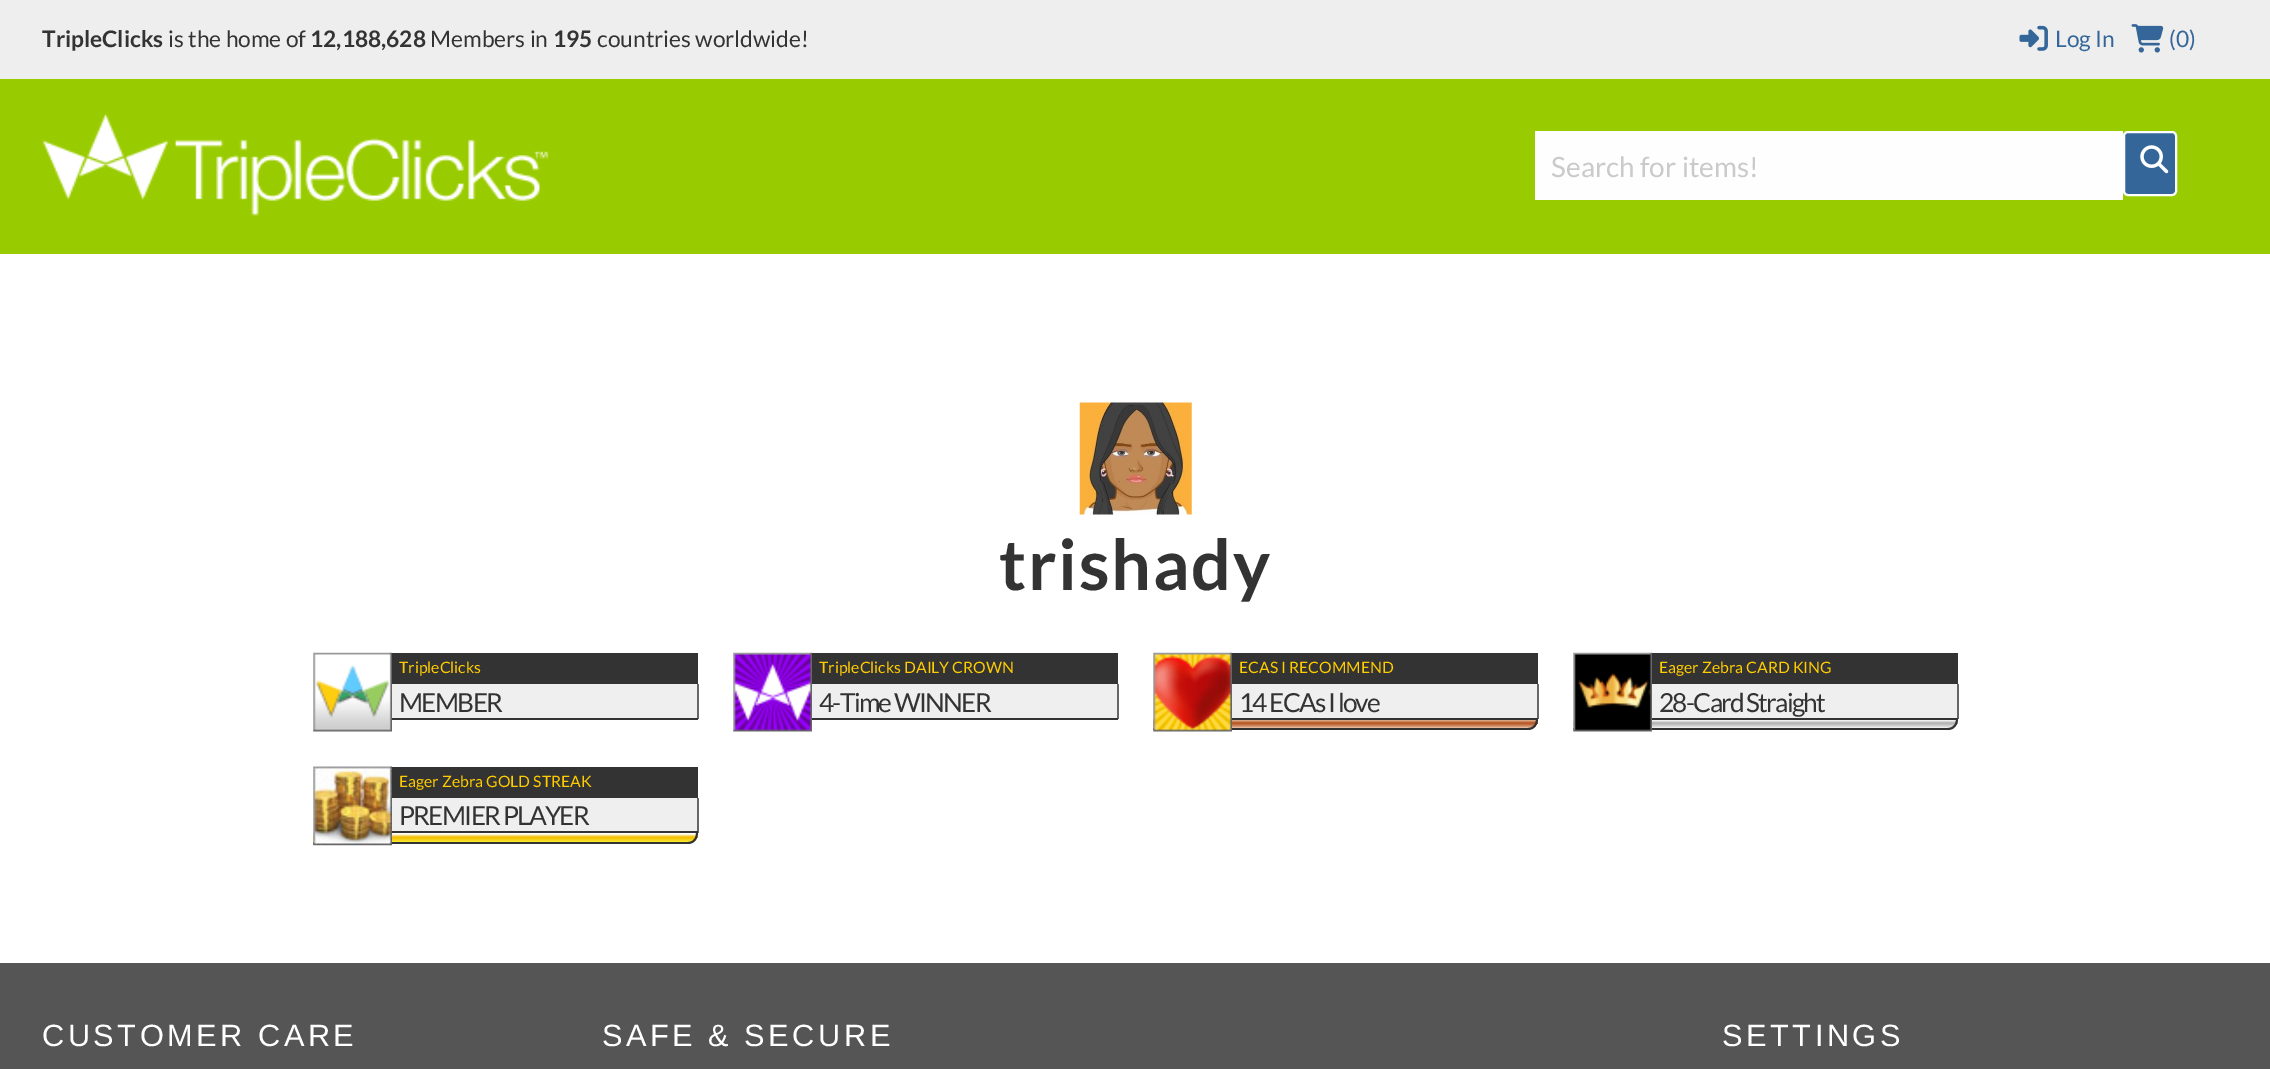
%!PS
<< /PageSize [2270 1069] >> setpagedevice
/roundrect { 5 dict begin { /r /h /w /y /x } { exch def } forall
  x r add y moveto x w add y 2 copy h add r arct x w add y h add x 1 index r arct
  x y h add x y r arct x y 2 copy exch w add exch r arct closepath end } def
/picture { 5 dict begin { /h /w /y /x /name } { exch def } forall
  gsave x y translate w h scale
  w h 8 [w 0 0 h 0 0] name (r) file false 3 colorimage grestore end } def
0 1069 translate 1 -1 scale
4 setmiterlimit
1 setgray
0 0 2270 1069 rectfill
0.6 0.8 0 setrgbcolor
0 79 2270 175 rectfill
0.933 setgray
0 0 2270 79 rectfill
/Lato-Bold [22.75 0 0 -22.75 0 0] selectfont
0.2 setgray
42 47 moveto (TripleClicks) show
/Lato-Regular [22.75 0 0 -22.75 0 0] selectfont
168 47 moveto (is the home of) show
/Lato-Bold [22.75 0 0 -22.75 0 0] selectfont
310 47 moveto (12,188,628) show
/Lato-Regular [22.75 0 0 -22.75 0 0] selectfont
430 47 moveto (Members in) show
/Lato-Bold [22.75 0 0 -22.75 0 0] selectfont
553 47 moveto (195) show
/Lato-Regular [22.75 0 0 -22.75 0 0] selectfont
597 47 moveto (countries worldwide!) show
(img1.rgb) 2019 25 29 26 picture
0.204 0.4 0.6 setrgbcolor
2055 47 moveto (Log In) show
(img2.rgb) 2131 24 33 29 picture
2169 47 moveto (\(0\)) show
(img3.rgb) 42 113 507 103 picture
0.996 setgray
1535 131 588 69 rectfill
/Lato-Regular [28 0 0 -28 0 0] selectfont
0.792 setgray
1551 177 moveto (Search for items!) show
0.204 0.4 0.6 setrgbcolor
2124 132 52 63 4 roundrect gsave fill grestore
1 setgray
2 setlinewidth
stroke
(img4.rgb) 2140 145 29 29 picture
(img5.rgb) 1079 402 113 113 picture
/Lato-Bold [70 0 0 -70 0 0] selectfont
0.2 setgray
999 590 moveto 1.75 0 (trishady) ashow
(img6.rgb) 313 652 79 80 picture
392 653 306 31 rectfill
/Lato-Regular [15.75 0 0 -15.75 0 0] selectfont
1 0.8 0 setrgbcolor
399 673 moveto (TripleClicks) show
0.937 setgray
392 684 305 34 rectfill
0.4 setgray
697 684 2 35 rectfill
0.2 setgray
392 718 306 2 rectfill
/Lato-Regular [26.25 0 0 -26.25 0 0] selectfont
399 712 moveto -1.75 0 (MEMBER) ashow
(img7.rgb) 733 652 79 80 picture
812 653 306 31 rectfill
/Lato-Regular [15.75 0 0 -15.75 0 0] selectfont
1 0.8 0 setrgbcolor
819 673 moveto (TripleClicks DAILY CROWN) show
0.937 setgray
812 684 305 34 rectfill
0.4 setgray
1117 684 2 35 rectfill
0.2 setgray
812 718 306 2 rectfill
/Lato-Regular [26.25 0 0 -26.25 0 0] selectfont
819 712 moveto -1.75 0 (4-Time WINNER) ashow
gsave
newpath 1153 719 moveto 1538 719 lineto 1538 725 1533 730 1527 730 curveto 1153 730 lineto closepath clip newpath
gsave newpath 1153 719 moveto 1538 719 lineto 1538 728 lineto 1153 728 lineto closepath clip newpath
<< /ShadingType 2 /ColorSpace /DeviceRGB /Coords [1345 719 1345 728] /Extend [true true] /Function << /FunctionType 3 /Domain [0 1] /Functions [<< /FunctionType 2 /Domain [0 1] /C0 [0.898 0.714 0.612] /C1 [0.898 0.714 0.612] /N 1 >> << /FunctionType 2 /Domain [0 1] /C0 [0.898 0.714 0.612] /C1 [0.698 0.318 0.11] /N 1 >> << /FunctionType 2 /Domain [0 1] /C0 [0.698 0.318 0.11] /C1 [0.898 0.714 0.612] /N 1 >>] /Bounds [0.1 0.45] /Encode [0 1 0 1 0 1] >> >> shfill grestore
grestore
newpath 1153 719 moveto 1538 719 lineto 1538 725 1534 730 1528 730 curveto 1153 730 lineto closepath 1153 719 moveto 1536 719 lineto 1536 724 1533 728 1528 728 curveto 1153 728 lineto closepath eofill
(img8.rgb) 1153 652 79 80 picture
1232 653 306 31 rectfill
/Lato-Regular [15.75 0 0 -15.75 0 0] selectfont
1 0.8 0 setrgbcolor
1239 673 moveto (ECAS I RECOMMEND) show
0.937 setgray
1232 684 305 34 rectfill
0.4 setgray
1537 684 2 35 rectfill
0.2 setgray
1232 718 306 2 rectfill
/Lato-Regular [26.25 0 0 -26.25 0 0] selectfont
1239 712 moveto -1.75 0 (14 ECAs I love) ashow
gsave
newpath 1573 719 moveto 1958 719 lineto 1958 725 1953 730 1947 730 curveto 1573 730 lineto closepath clip newpath
gsave newpath 1573 719 moveto 1958 719 lineto 1958 728 lineto 1573 728 lineto closepath clip newpath
<< /ShadingType 2 /ColorSpace /DeviceRGB /Coords [1765 719 1765 728] /Extend [true true] /Function << /FunctionType 3 /Domain [0 1] /Functions [<< /FunctionType 2 /Domain [0 1] /C0 [1 1 1] /C1 [1 1 1] /N 1 >> << /FunctionType 2 /Domain [0 1] /C0 [1 1 1] /C1 [0.686 0.686 0.686] /N 1 >> << /FunctionType 2 /Domain [0 1] /C0 [0.686 0.686 0.686] /C1 [0.929 0.929 0.929] /N 1 >>] /Bounds [0.1 0.45] /Encode [0 1 0 1 0 1] >> >> shfill grestore
grestore
newpath 1573 719 moveto 1958 719 lineto 1958 725 1954 730 1948 730 curveto 1573 730 lineto closepath 1573 719 moveto 1956 719 lineto 1956 724 1953 728 1948 728 curveto 1573 728 lineto closepath eofill
(img9.rgb) 1573 652 79 80 picture
1652 653 306 31 rectfill
/Lato-Regular [15.75 0 0 -15.75 0 0] selectfont
1 0.8 0 setrgbcolor
1659 673 moveto (Eager Zebra CARD KING) show
0.937 setgray
1652 684 305 34 rectfill
0.4 setgray
1957 684 2 35 rectfill
0.2 setgray
1652 718 306 2 rectfill
/Lato-Regular [26.25 0 0 -26.25 0 0] selectfont
1659 712 moveto -1.75 0 (28-Card Straight) ashow
gsave
newpath 313 833 moveto 698 833 lineto 698 839 693 844 687 844 curveto 313 844 lineto closepath clip newpath
gsave newpath 313 833 moveto 698 833 lineto 698 842 lineto 313 842 lineto closepath clip newpath
<< /ShadingType 2 /ColorSpace /DeviceRGB /Coords [505 833 505 842] /Extend [true true] /Function << /FunctionType 3 /Domain [0 1] /Functions [<< /FunctionType 2 /Domain [0 1] /C0 [1 1 1] /C1 [1 1 1] /N 1 >> << /FunctionType 2 /Domain [0 1] /C0 [1 1 1] /C1 [0.949 0.741 0] /N 1 >> << /FunctionType 2 /Domain [0 1] /C0 [0.949 0.741 0] /C1 [0.976 0.898 0.173] /N 1 >>] /Bounds [0.1 0.45] /Encode [0 1 0 1 0 1] >> >> shfill grestore
grestore
newpath 313 833 moveto 698 833 lineto 698 839 694 844 688 844 curveto 313 844 lineto closepath 313 833 moveto 696 833 lineto 696 838 693 842 688 842 curveto 313 842 lineto closepath eofill
(img10.rgb) 313 766 79 80 picture
392 767 306 31 rectfill
/Lato-Regular [15.75 0 0 -15.75 0 0] selectfont
1 0.8 0 setrgbcolor
399 787 moveto (Eager Zebra GOLD STREAK) show
0.937 setgray
392 798 305 33 rectfill
0.4 setgray
697 798 2 35 rectfill
0.2 setgray
392 831 306 2 rectfill
/Lato-Regular [26.25 0 0 -26.25 0 0] selectfont
399 825 moveto -1.75 0 (PREMIER PLAYER) ashow
0.333 setgray
0 963 2270 106 rectfill
/LiberationSans-Regular [30.75 0 0 -30.75 0 0] selectfont
1 setgray
42 1046 moveto 3.5 0 (CUSTOMER CARE) ashow
602 1046 moveto 3.5 0 (SAFE & SECURE) ashow
1722 1046 moveto 3.5 0 (SETTINGS) ashow
showpage
